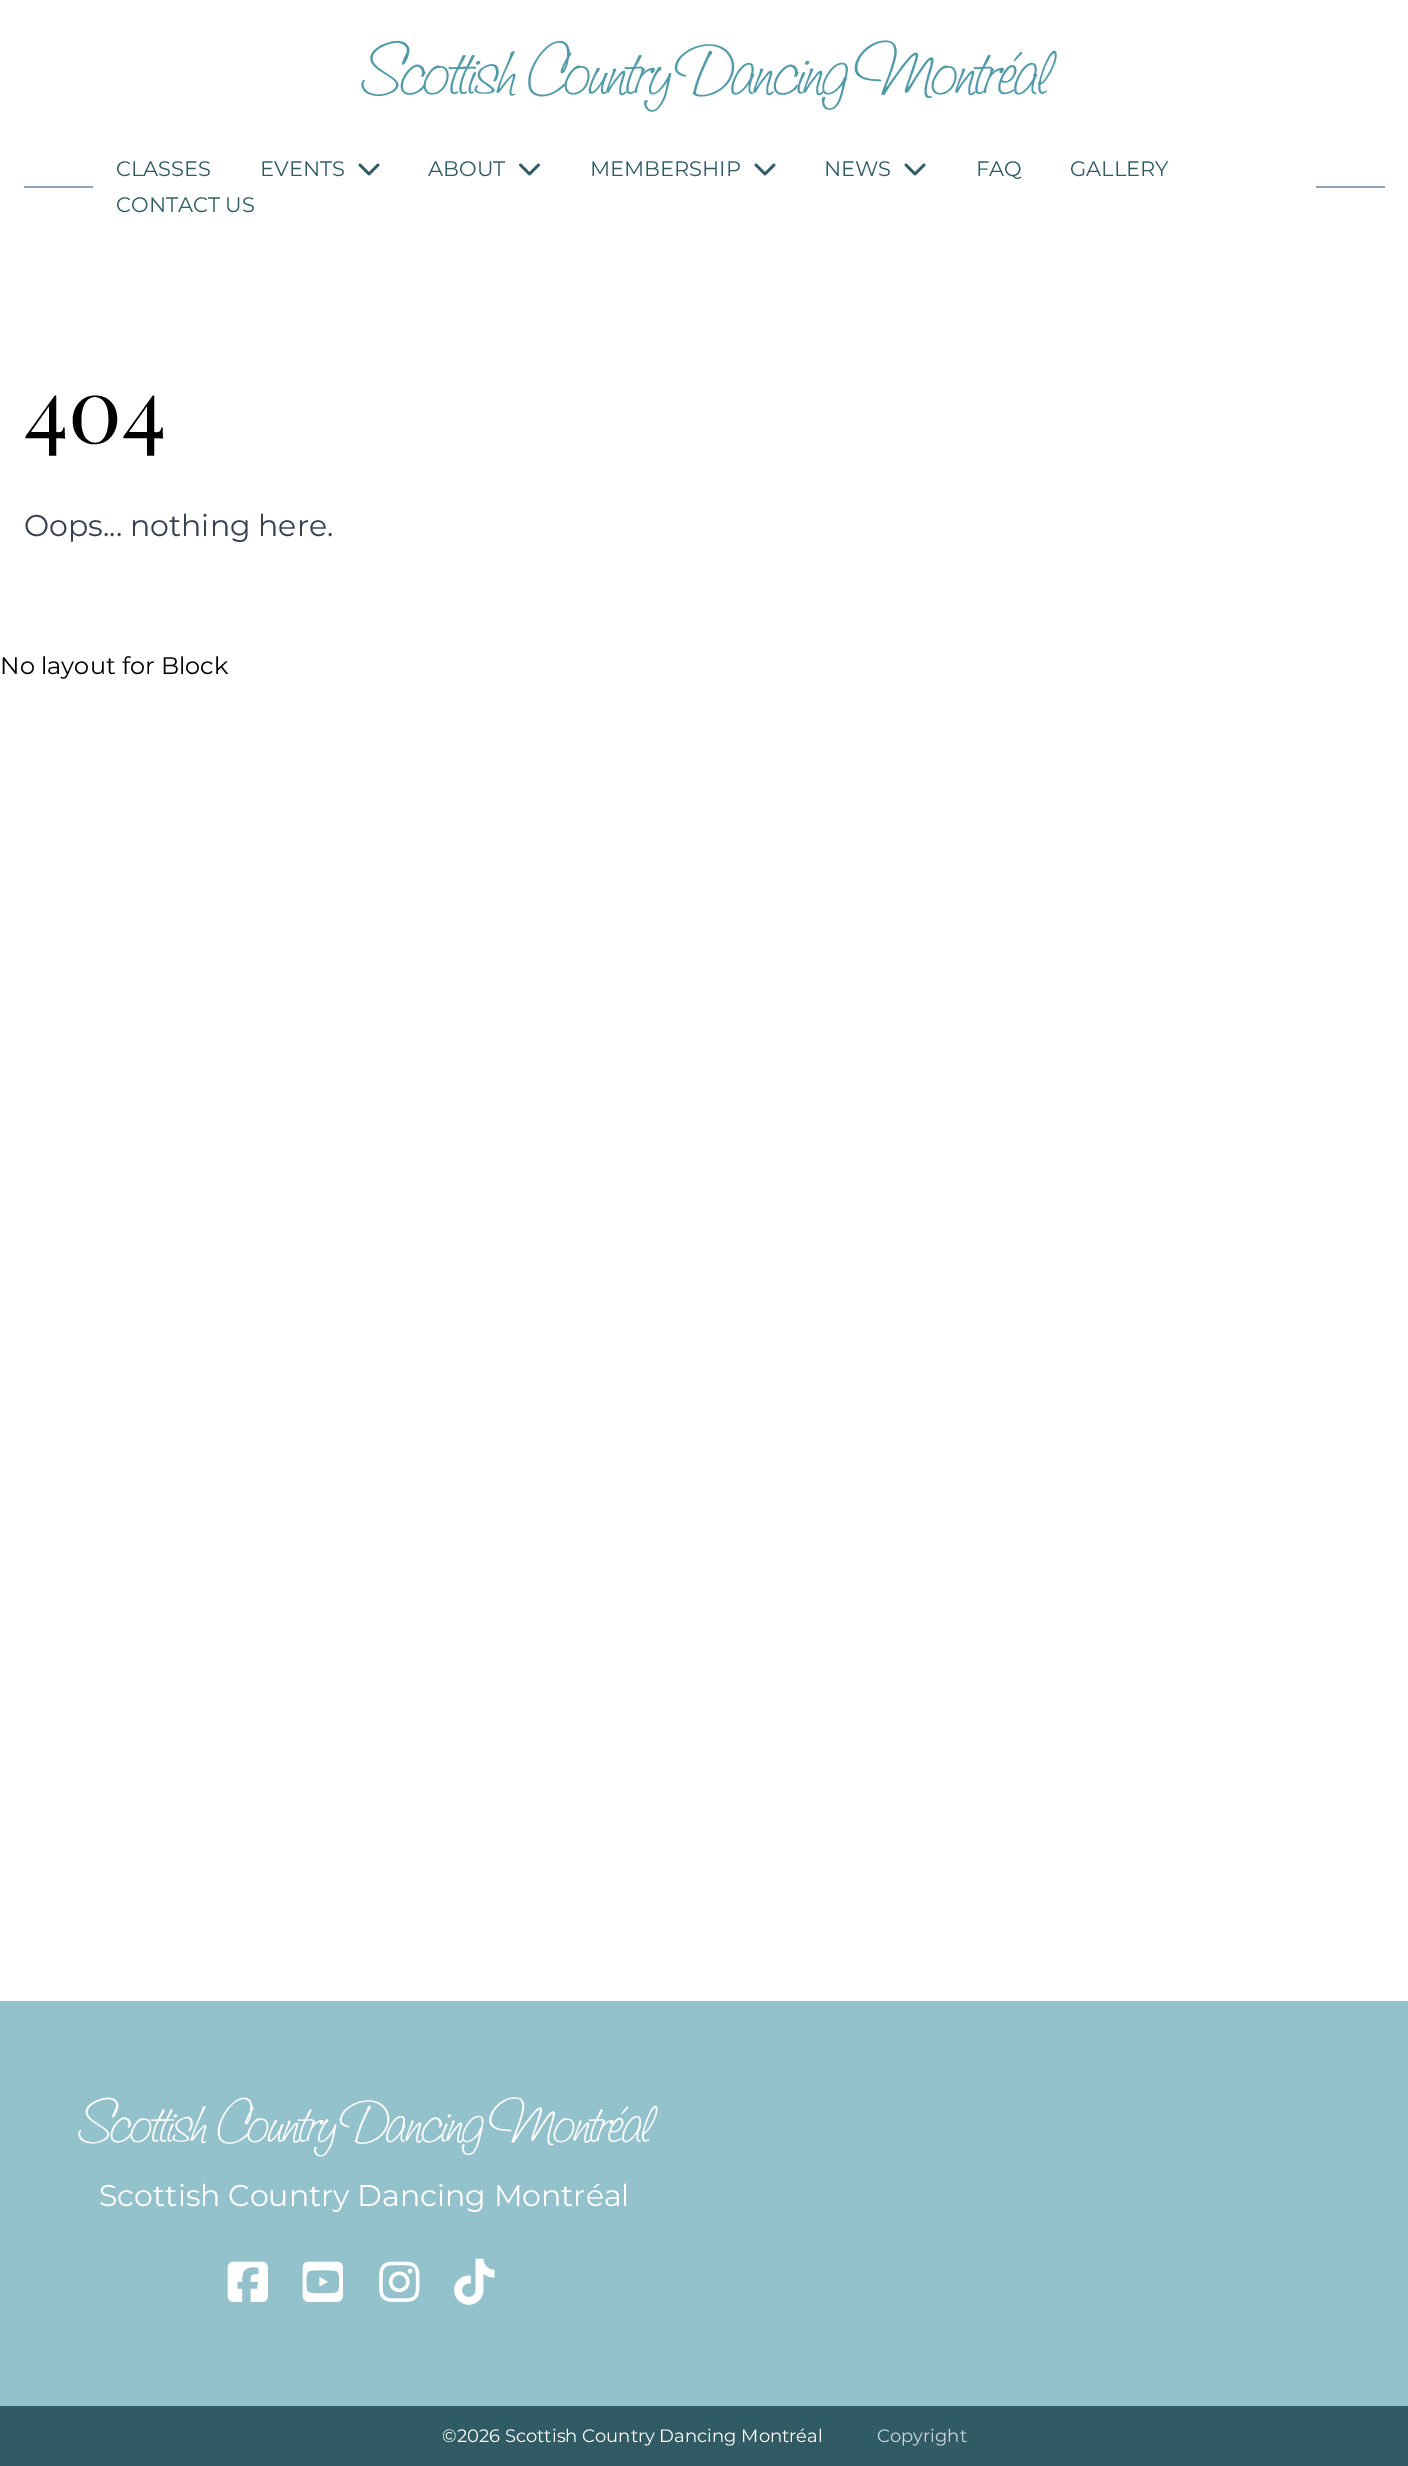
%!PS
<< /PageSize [1408 2466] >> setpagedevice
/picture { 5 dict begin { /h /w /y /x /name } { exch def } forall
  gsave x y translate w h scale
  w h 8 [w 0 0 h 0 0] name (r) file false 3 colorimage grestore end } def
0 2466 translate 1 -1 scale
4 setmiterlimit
1 setgray
0 0 1408 2466 rectfill
/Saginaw-Medium [54 0 0 -54 0 0] selectfont
0.318 0.604 0.659 setrgbcolor
361 93 moveto (Scottish Country Dancing Montréal) show
0.58 0.639 0.722 setrgbcolor
24 186 69 2 rectfill
/Montserrat-Regular [21 0 0 -21 0 0] selectfont
0.188 0.357 0.392 setrgbcolor
116 176 moveto (CLASSES) show
260 176 moveto (EVENTS) show
(img1.rgb) 358 163 22 13 picture
428 176 moveto (ABOUT) show
(img2.rgb) 519 163 21 13 picture
590 176 moveto (MEMBERSHIP) show
(img1.rgb) 754 163 22 13 picture
824 176 moveto (NEWS) show
(img1.rgb) 904 163 22 13 picture
976 176 moveto (FAQ) show
1070 176 moveto (GALLERY) show
116 212 moveto (CONTACT US) show
0.58 0.639 0.722 setrgbcolor
1316 186 69 2 rectfill
/PlayfairDisplay-Regular [90 0 0 -90 0 0] selectfont
0 setgray
24 443 moveto (404) show
/Montserrat-Regular [30 0 0 -30 0 0] selectfont
0.216 0.255 0.318 setrgbcolor
24 536 moveto (Oops... nothing here.) show
/Montserrat-Regular [24 0 0 -24 0 0] selectfont
0 setgray
0 674 moveto (No layout for Block) show
0.58 0.761 0.8 setrgbcolor
0 2001 1408 405 rectfill
/Saginaw-Medium [45 0 0 -45 0 0] selectfont
1 setgray
78 2141 moveto (Scottish Country Dancing Montréal) show
/Montserrat-Regular [30 0 0 -30 0 0] selectfont
99 2206 moveto (Scottish Country Dancing Montréal) show
(img3.rgb) 227 2261 41 41 picture
(img4.rgb) 302 2261 41 41 picture
(img5.rgb) 379 2261 41 41 picture
(img6.rgb) 454 2258 41 47 picture
0.188 0.357 0.392 setrgbcolor
0 2406 1408 60 rectfill
/Montserrat-Regular [18 0 0 -18 0 0] selectfont
1 setgray
442 2442 moveto (©2026 Scottish Country Dancing Montréal) show
0.796 0.835 0.882 setrgbcolor
877 2442 moveto (Copyright) show
showpage
